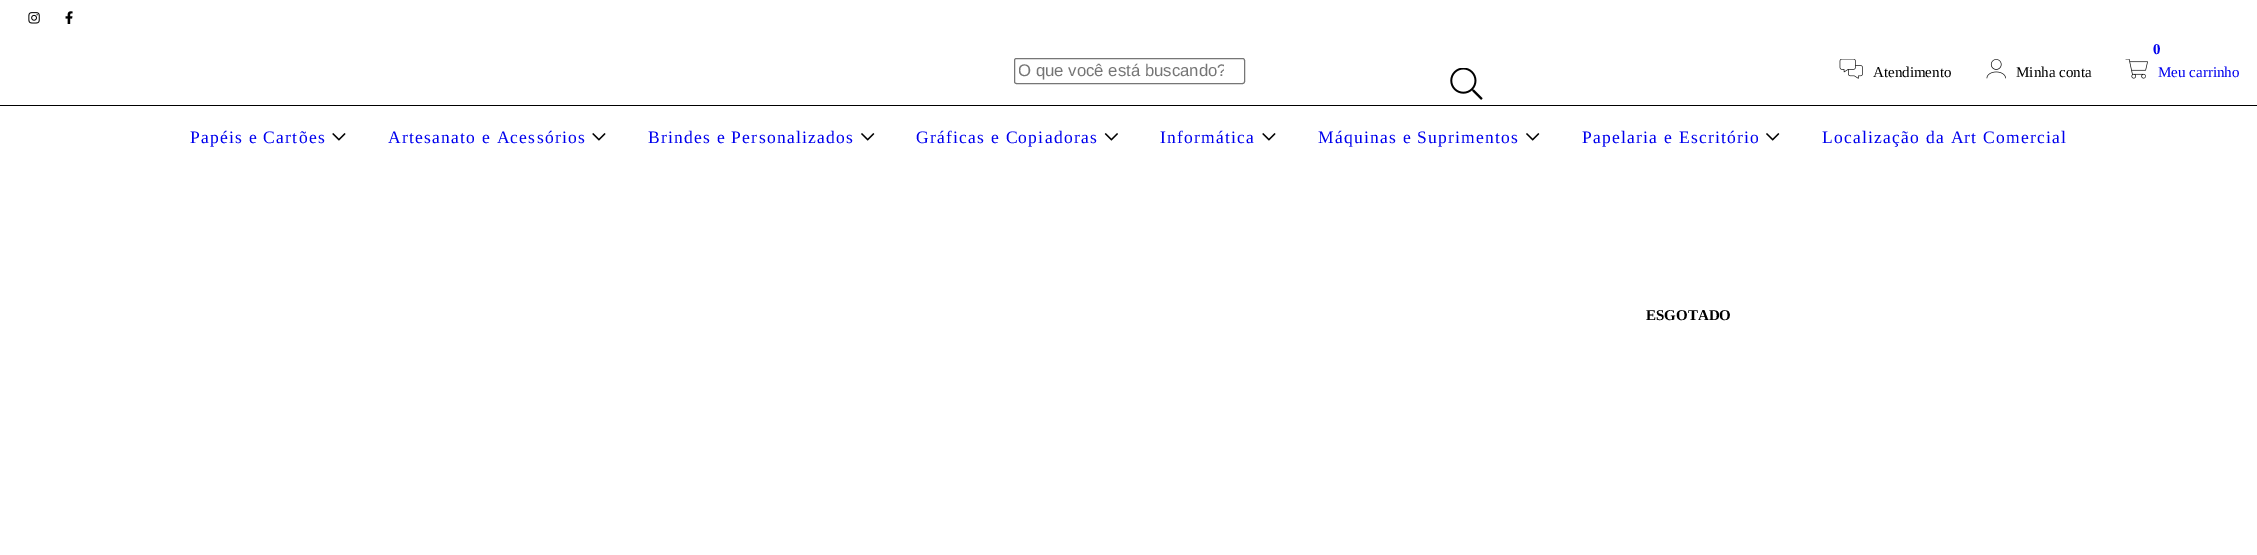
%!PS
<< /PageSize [2257 555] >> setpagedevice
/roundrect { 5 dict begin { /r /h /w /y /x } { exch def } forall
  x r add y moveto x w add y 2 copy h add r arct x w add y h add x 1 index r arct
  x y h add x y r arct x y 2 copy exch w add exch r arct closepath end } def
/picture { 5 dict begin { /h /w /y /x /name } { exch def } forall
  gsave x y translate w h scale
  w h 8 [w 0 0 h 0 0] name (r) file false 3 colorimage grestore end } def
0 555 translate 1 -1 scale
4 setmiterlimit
1 setgray
0 0 2257 555 rectfill
(img1.rgb) 28 12 12 12 picture
(img2.rgb) 65 11 8 13 picture
0.463 setgray
1014.5 58.5 230 25 2 roundrect stroke
gsave
1019 61 205 19 rectclip
/LiberationSans-Regular [16.75 0 0 -16.75 0 0] selectfont
0.459 setgray
1018 76 moveto (O que você está buscando?) show
grestore
(img3.rgb) 1450 68 33 32 picture
(img4.rgb) 1839 59 24 20 picture
/LiberationSerif-Regular [15 0 0 -15 0 0] selectfont
0 setgray
1873 77 moveto (Atendimento) show
(img5.rgb) 1986 59 20 20 picture
2016 77 moveto (Minha conta) show
/LiberationSerif-Bold [15 0 0 -15 0 0] selectfont
0 0 0.933 setrgbcolor
2153 54 moveto (0) show
(img6.rgb) 2125 59 23 20 picture
/LiberationSerif-Regular [15 0 0 -15 0 0] selectfont
2158 77 moveto (Meu carrinho) show
0 setgray
0 105 2257 1 rectfill
/LiberationSerif-Regular [17.5 0 0 -17.5 0 0] selectfont
0 0 0.933 setrgbcolor
190 143 moveto 1.25 0 (Papéis e Cartões) ashow
(img7.rgb) 332 133 14 8 picture
388 143 moveto 1.25 0 (Artesanato e Acessórios) ashow
(img7.rgb) 592 133 14 8 picture
648 143 moveto 1.25 0 (Brindes e Personalizados) ashow
(img8.rgb) 861 133 14 8 picture
916 143 moveto 1.25 0 (Gráficas e Copiadoras) ashow
(img9.rgb) 1104 133 14 8 picture
1160 143 moveto 1.25 0 (Informática) ashow
(img7.rgb) 1262 133 14 8 picture
1318 143 moveto 1.25 0 (Máquinas e Suprimentos) ashow
(img8.rgb) 1526 133 14 8 picture
1582 143 moveto 1.25 0 (Papelaria e Escritório) ashow
(img8.rgb) 1766 133 14 8 picture
1822 143 moveto 1.25 0 (Localização da Art Comercial) ashow
/LiberationSerif-Bold [15 0 0 -15 0 0] selectfont
0 setgray
1646 320 moveto (ESGOTADO) show
showpage
